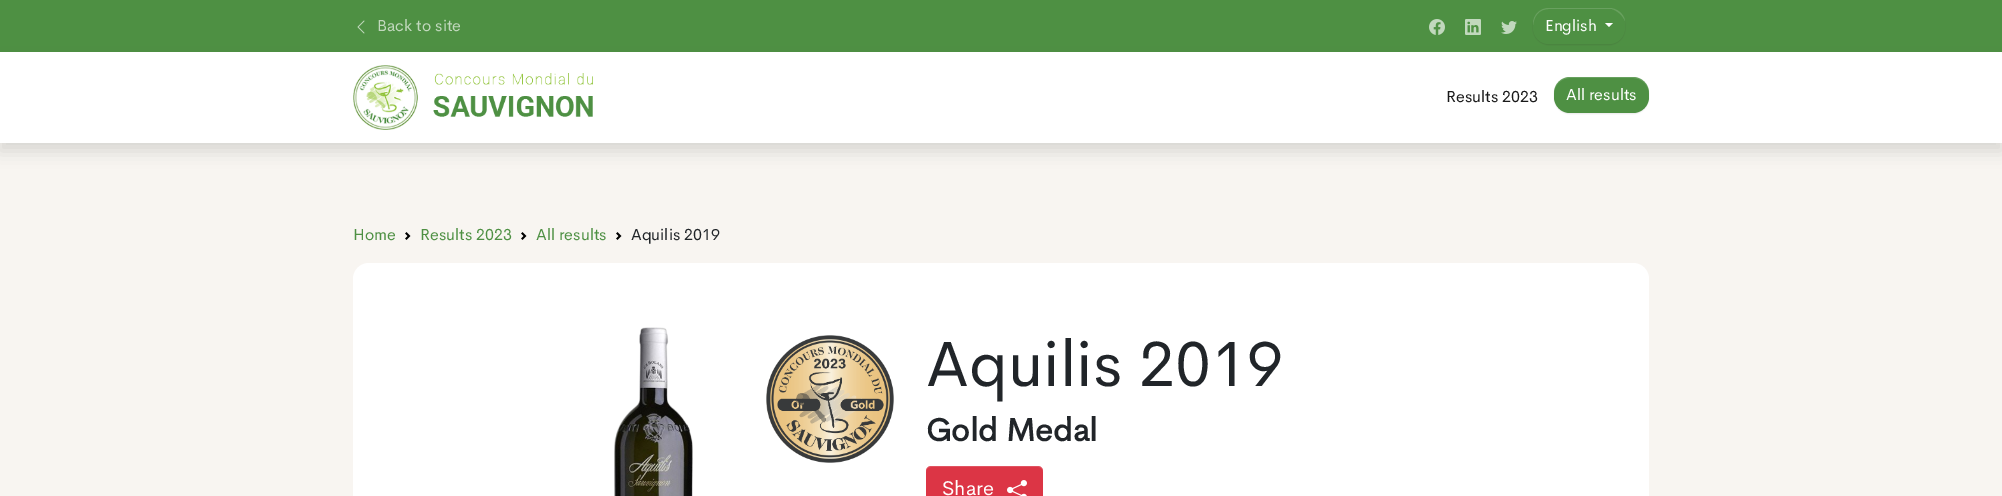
%!PS
<< /PageSize [2002 496] /PageUsesTransparency true >> setpagedevice
/alpha { dup .setfillconstantalpha .setstrokeconstantalpha } def
/roundrect { 5 dict begin { /r /h /w /y /x } { exch def } forall
  x r add y moveto x w add y 2 copy h add r arct x w add y h add x 1 index r arct
  x y h add x y r arct x y 2 copy exch w add exch r arct closepath end } def
/shadow { 12 dict begin { /a /b /q /h /w /y /x } { exch def } forall gsave /was 0 def
  9 -2 -9 { dup b mul 4 div /e exch def 1 sub .425 mul 2.718 exch exp 1 add a .99 .min exch div /now exch def
    1 1 now sub 1 was sub div sub alpha /was now def
    w h .min e 2 mul add 0 gt { x e sub y e sub w e 2 mul add h e 2 mul add
      q e add b .6 mul add w h .min 2 div e add .min 0 .max roundrect fill } if } for grestore end } def
/picture { 5 dict begin { /h /w /y /x /name } { exch def } forall
  gsave x y translate w h scale
  w h 8 [w 0 0 h 0 0] name (r) file false 3 colorimage grestore end } def
0 .pushpdf14devicefilter
0 496 translate 1 -1 scale
4 setmiterlimit
0.973 0.961 0.945 setrgbcolor
0 0 2002 496 rectfill
0.306 0.565 0.263 setrgbcolor
0 0 2002 52 rectfill
(img1.rgb) 357 20 8 14 picture
/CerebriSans-Regular [16 0 0 -16 0 0] selectfont
0.757 0.847 0.741 setrgbcolor
377 31 moveto (Back to site) show
(img2.rgb) 1429 19 16 16 picture
(img3.rgb) 1465 19 16 16 picture
(img4.rgb) 1501 21 16 13 picture
0 setgray
1533 9 92 36 16 0.5 0.07 shadow
0.306 0.565 0.263 setrgbcolor
1533 8 92 36 16 roundrect fill
0.412 0.631 0.373 setrgbcolor
newpath 1549 9 moveto 1612 9 lineto 1618 11 1623 16 1625 21 curveto 1624 14 1617 8 1609 8 curveto 1549 8 lineto 1540 8 1533 15 1533 24 curveto 1533 25 lineto 1534 16 1539 9 1549 9 curveto closepath fill
1 setgray
1545 31 moveto (English) show
newpath 1605 23 moveto 1613 23 lineto 1609 27 lineto closepath fill
0.125 setgray
0 60 2002 91 0 8 0.15 shadow
1 setgray
0 52 2002 91 rectfill
(img5.rgb) 353 65 240 65 picture
0.102 setgray
1446 102 moveto (Results 2023) show
0 setgray
1554 78 95 36 16 0.5 0.07 shadow
0.306 0.565 0.263 setrgbcolor
1554 77 95 36 16 roundrect fill
0.15 alpha
1 setgray
newpath 1570 78 moveto 1633 78 lineto 1642 78 1649 85 1649 94 curveto 1649 93 lineto 1649 84 1642 77 1633 77 curveto 1570 77 lineto 1561 77 1554 84 1554 93 curveto 1554 94 lineto 1554 85 1561 78 1570 78 curveto closepath fill
1 alpha
1566 100 moveto (All results) show
0.306 0.565 0.263 setrgbcolor
353 240 moveto (Home) show
(img6.rgb) 405 232 6 8 picture
420 240 moveto (Results 2023) show
(img6.rgb) 521 232 6 8 picture
536 240 moveto (All results) show
(img6.rgb) 616 232 6 8 picture
0.129 0.145 0.161 setrgbcolor
631 240 moveto (Aquilis 2019) show
1 setgray
353 263 1296 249 16 roundrect fill
(img7.rgb) 614 327 79 169 picture
(img8.rgb) 766 335 128 128 picture
/CerebriSans-Regular [64 0 0 -64 0 0] selectfont
0.129 0.145 0.161 setrgbcolor
926 386 moveto (Aquilis 2019) show
/CerebriSans-Bold [32 0 0 -32 0 0] selectfont
926 441 moveto (Gold Medal) show
0.863 0.208 0.271 setrgbcolor
926 466 117 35 5 roundrect fill
0.15 alpha
1 setgray
newpath 931 467 moveto 1038 467 lineto 1041 467 1043 469 1043 472 curveto 1043 461 1025 466 1020 466 curveto 949 466 lineto 944 466 926 461 926 472 curveto 926 469 928 467 931 467 curveto closepath fill
/CerebriSans-Regular [20 0 0 -20 0 0] selectfont
1 alpha
942 495 moveto (Share) show
(img9.rgb) 1007 480 20 16 picture
.poppdf14devicefilter showpage
